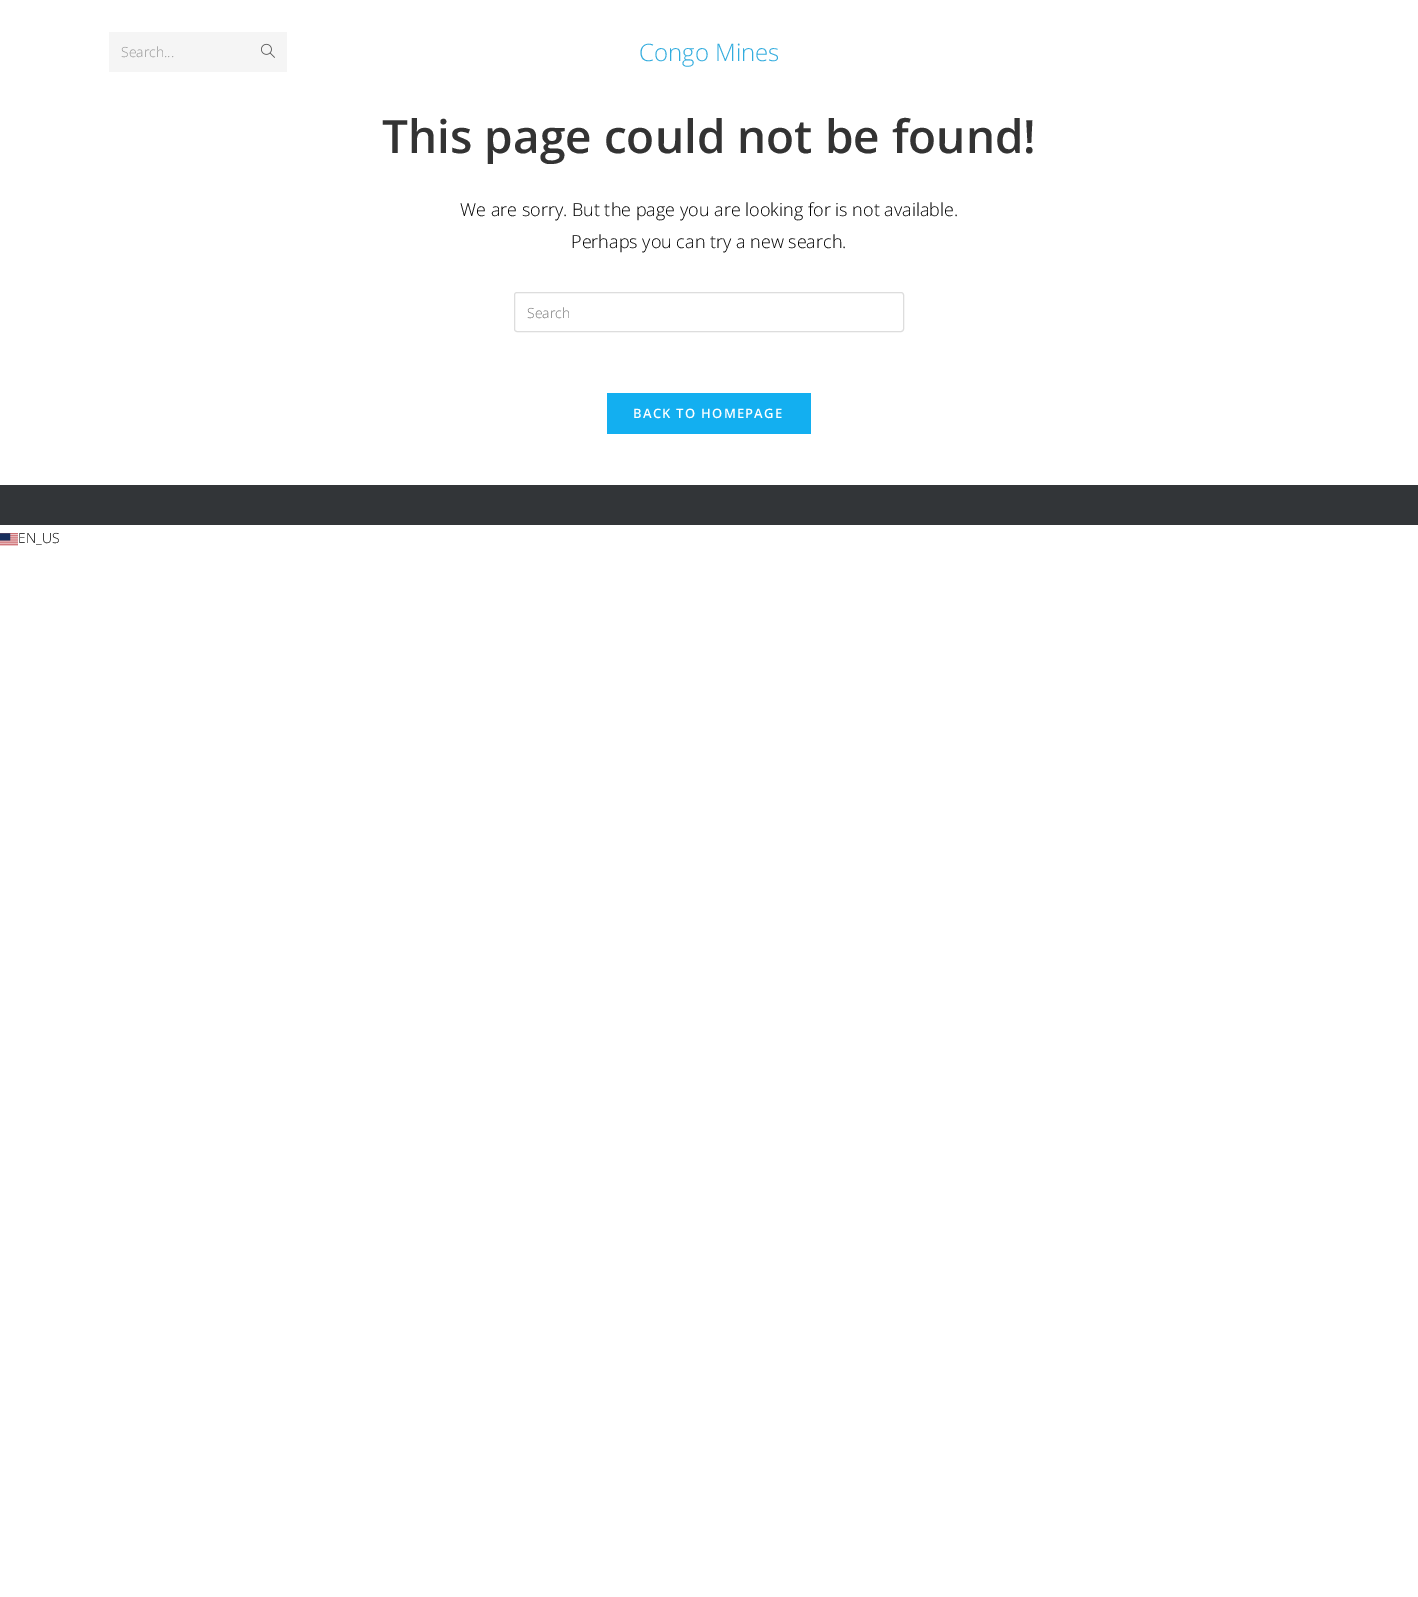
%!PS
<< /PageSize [1418 1597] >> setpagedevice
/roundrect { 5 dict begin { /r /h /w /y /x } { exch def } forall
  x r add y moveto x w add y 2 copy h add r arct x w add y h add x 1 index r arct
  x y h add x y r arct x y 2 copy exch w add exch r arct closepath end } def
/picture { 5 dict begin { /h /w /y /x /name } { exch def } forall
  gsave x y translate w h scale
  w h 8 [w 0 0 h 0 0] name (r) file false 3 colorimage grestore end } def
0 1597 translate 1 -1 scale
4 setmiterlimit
1 setgray
0 0 1418 1597 rectfill
0.961 setgray
109 32 178 40 rectfill
/OpenSans-Light [14 0 0 -14 0 0] selectfont
0.58 setgray
121 57 moveto (Search...) show
(img1.rgb) 261 43 14 15 picture
/OpenSans-Light [24 0 0 -24 0 0] selectfont
0.196 0.675 0.871 setrgbcolor
639 61 moveto (Congo Mines) show
/OpenSans-SemiBold [46 0 0 -46 0 0] selectfont
0.2 setgray
382 153 moveto (This page could not be found!) show
/OpenSans-Light [18 0 0 -18 0 0] selectfont
0 setgray
460 216 moveto (We are sorry. But the page you are looking for is not available.) show
571 248 moveto (Perhaps you can try a new search.) show
0.867 setgray
514.5 292.5 389 39 2.5 roundrect stroke
/OpenSans-Light [14 0 0 -14 0 0] selectfont
0.459 setgray
527 318 moveto (Search) show
0.075 0.686 0.941 setrgbcolor
607 393 204 41 rectfill
/OpenSans-SemiBold [13 0 0 -13 0 0] selectfont
1 setgray
633 418 moveto 1.25 0 (BACK TO HOMEPAGE) ashow
0.196 0.208 0.22 setrgbcolor
0 485 1418 40 rectfill
(img2.rgb) 0 533 18 13 picture
/OpenSans-Light [14 0 0 -14 0 0] selectfont
0 setgray
18 543 moveto (EN_US) show
showpage
